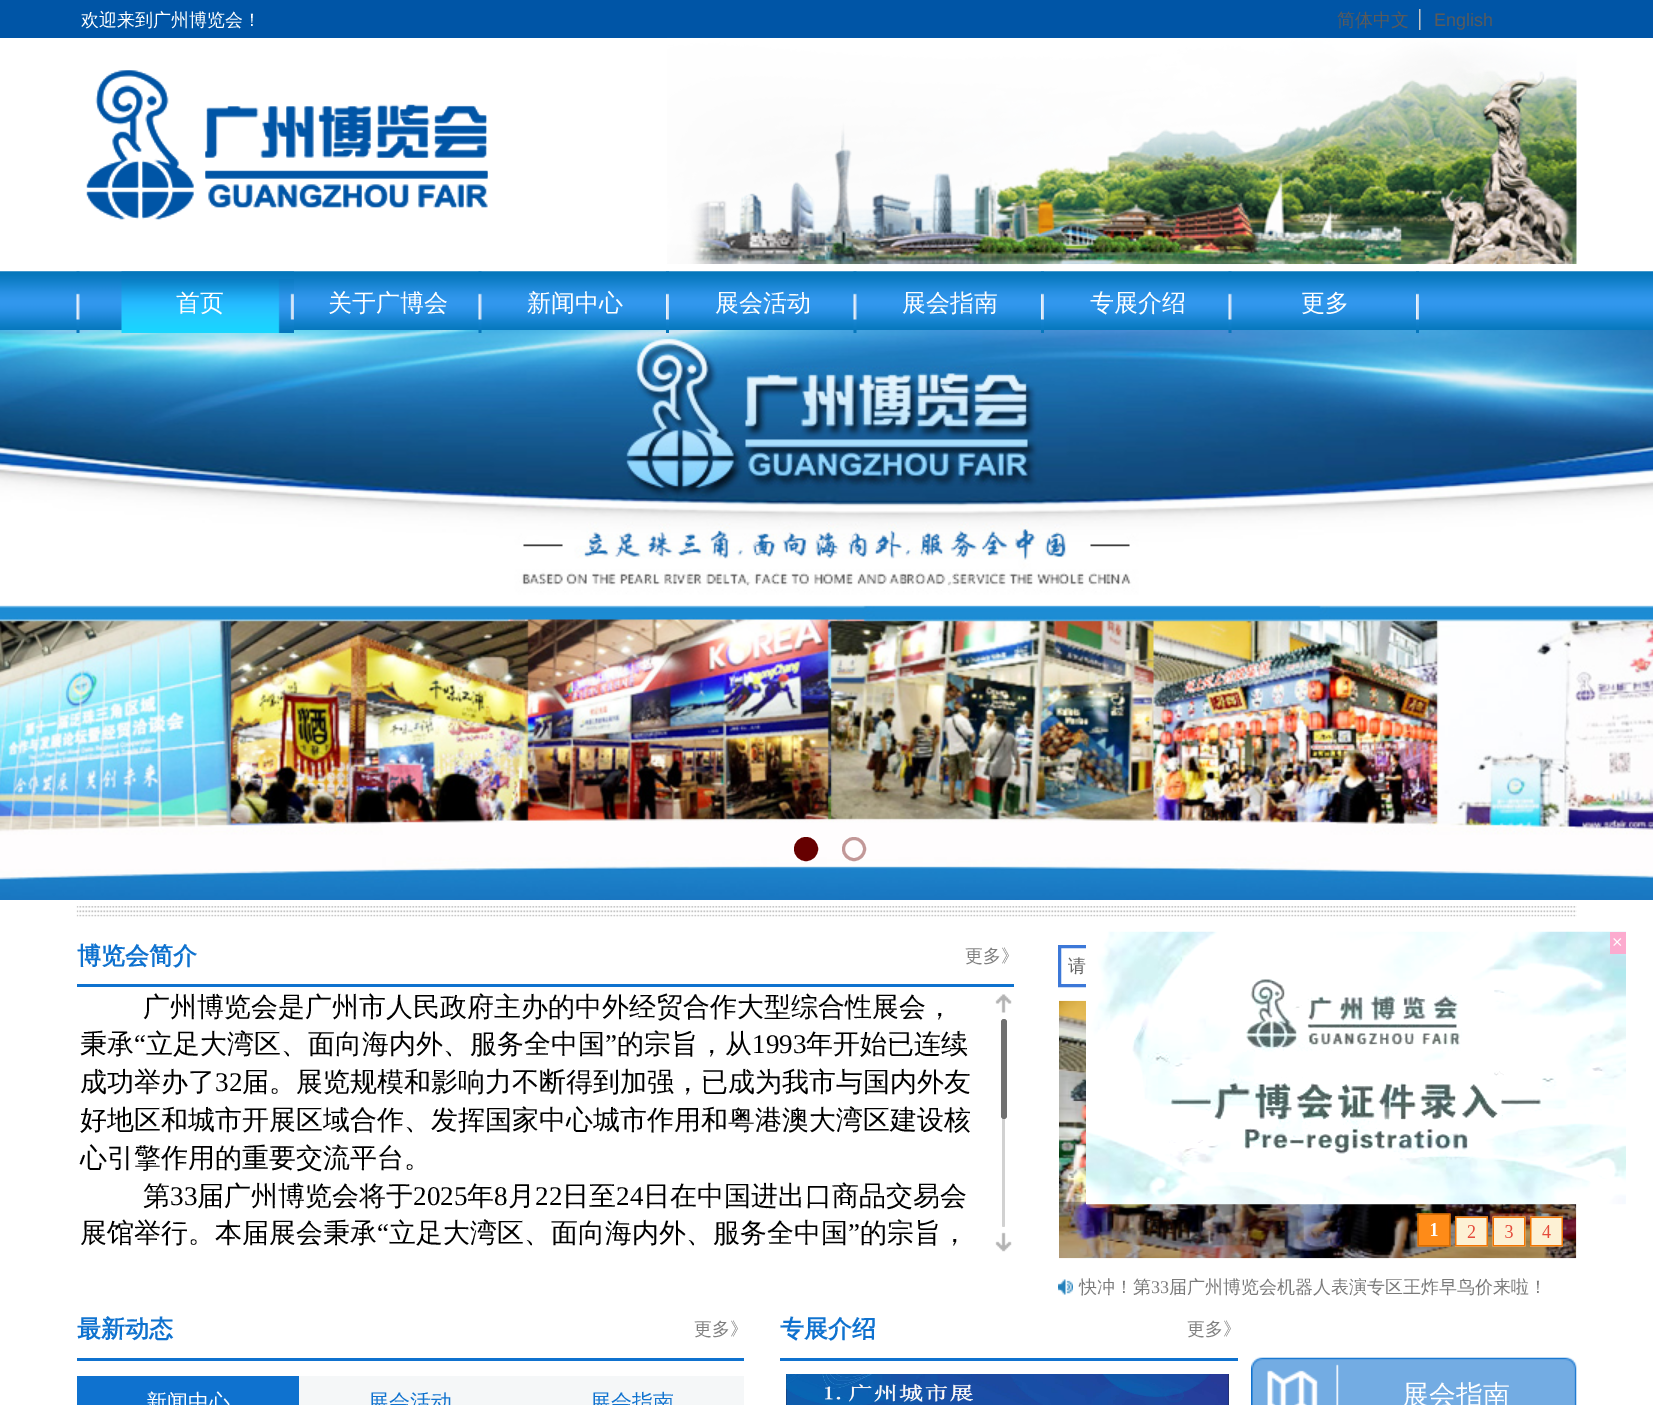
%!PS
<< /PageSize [1653 1405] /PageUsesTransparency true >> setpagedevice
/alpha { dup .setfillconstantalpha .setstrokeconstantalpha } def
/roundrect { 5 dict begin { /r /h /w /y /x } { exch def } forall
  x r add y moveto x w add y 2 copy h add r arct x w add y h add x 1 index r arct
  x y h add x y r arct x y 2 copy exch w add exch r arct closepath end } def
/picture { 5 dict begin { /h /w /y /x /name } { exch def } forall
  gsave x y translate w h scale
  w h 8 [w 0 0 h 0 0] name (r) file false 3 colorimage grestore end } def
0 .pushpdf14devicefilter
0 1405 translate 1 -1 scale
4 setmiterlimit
1 setgray
0 0 1653 1405 rectfill
0 0.333 0.651 setrgbcolor
0 0 1653 38 rectfill
/WenQuanYiZenHei-Medium [18 0 0 -18 0 0] selectfont
1 setgray
81 26 moveto (欢迎来到广州博览会！) show
(img1.rgb) 1419 9 2 21 picture
0.353 setgray
1337 26 moveto (简体中文) show
/LiberationSans-Regular [18 0 0 -18 0 0] selectfont
1434 26 moveto (English) show
(img2.rgb) 86 70 402 150 picture
(img3.rgb) 667 37 910 227 picture
(img4.rgb) 86 70 402 150 picture
(img5.rgb) 0 271 1653 1 picture
(img6.rgb) 76 271 4 1 picture
(img7.rgb) 121 271 173 1 picture
(img6.rgb) 478 271 4 1 picture
(img8.rgb) 666 271 3 1 picture
(img6.rgb) 853 271 4 1 picture
(img8.rgb) 1041 271 3 1 picture
(img6.rgb) 1228 271 4 1 picture
(img8.rgb) 1416 271 3 1 picture
(img9.rgb) 0 271 1653 59 picture
(img17.rgb) 0 330 1653 570 picture
(img10.rgb) 76 290 4 43 picture
(img11.rgb) 121 279 173 54 picture
/WenQuanYiZenHei-Medium [24 0 0 -24 0 0] selectfont
1 setgray
176 311 moveto (首页) show
(img12.rgb) 478 290 4 43 picture
328 311 moveto (关于广博会) show
(img13.rgb) 666 290 3 43 picture
527 311 moveto (新闻中心) show
(img14.rgb) 853 290 4 43 picture
715 311 moveto (展会活动) show
(img15.rgb) 1041 290 3 43 picture
902 311 moveto (展会指南) show
(img16.rgb) 1228 290 4 43 picture
1090 311 moveto (专展介绍) show
(img13.rgb) 1416 290 3 43 picture
1301 311 moveto (更多) show
0.4 0 0 setrgbcolor
newpath 806 849 10.5 0 360 arc closepath gsave fill grestore
3 setlinewidth
stroke
0.4 alpha
newpath 854 849 10.5 0 360 arc closepath stroke
1 alpha
(img18.rgb) 76 906 1501 11 picture
/WenQuanYiZenHei-Bold [24 0 0 -24 0 0] selectfont
0.059 0.447 0.812 setrgbcolor
77 964 moveto (博览会简介) show
/WenQuanYiZenHei-Medium [18 0 0 -18 0 0] selectfont
0.502 setgray
965 962 moveto (更多》) show
0.235 0.471 0.847 setrgbcolor
1059.5 946.5 441 39 rectstroke
0.4 setgray
1068 972 moveto (请) show
0.059 0.447 0.812 setrgbcolor
77 984 937 3 rectfill
/WenQuanYiZenHei-Medium [27 0 0 -27 0 0] selectfont
0 setgray
143 1016 moveto (广州博览会是广州市人民政府主办的中外经贸合作大型综合性展会，) show
80 1053 moveto (秉承) show
/LiberationSerif-Regular [27 0 0 -27 0 0] selectfont
134 1053 moveto (“) show
/WenQuanYiZenHei-Medium [27 0 0 -27 0 0] selectfont
146 1053 moveto (立足大湾区、面向海内外、服务全中国) show
/LiberationSerif-Regular [27 0 0 -27 0 0] selectfont
605 1053 moveto (”) show
/WenQuanYiZenHei-Medium [27 0 0 -27 0 0] selectfont
617 1053 moveto (的宗旨，从) show
/LiberationSerif-Regular [27 0 0 -27 0 0] selectfont
752 1053 moveto (1993) show
/WenQuanYiZenHei-Medium [27 0 0 -27 0 0] selectfont
806 1053 moveto (年开始已连续) show
80 1091 moveto (成功举办了) show
/LiberationSerif-Regular [27 0 0 -27 0 0] selectfont
215 1091 moveto (32) show
/WenQuanYiZenHei-Medium [27 0 0 -27 0 0] selectfont
242 1091 moveto (届。展览规模和影响力不断得到加强，已成为我市与国内外友) show
80 1129 moveto (好地区和城市开展区域合作、发挥国家中心城市作用和粤港澳大湾区建设核) show
80 1167 moveto (心引擎作用的重要交流平台。) show
143 1205 moveto (第) show
/LiberationSerif-Regular [27 0 0 -27 0 0] selectfont
170 1205 moveto (33) show
/WenQuanYiZenHei-Medium [27 0 0 -27 0 0] selectfont
197 1205 moveto (届广州博览会将于) show
/LiberationSerif-Regular [27 0 0 -27 0 0] selectfont
413 1205 moveto (2025) show
/WenQuanYiZenHei-Medium [27 0 0 -27 0 0] selectfont
467 1205 moveto (年) show
/LiberationSerif-Regular [27 0 0 -27 0 0] selectfont
494 1205 moveto (8) show
/WenQuanYiZenHei-Medium [27 0 0 -27 0 0] selectfont
508 1205 moveto (月) show
/LiberationSerif-Regular [27 0 0 -27 0 0] selectfont
535 1205 moveto (22) show
/WenQuanYiZenHei-Medium [27 0 0 -27 0 0] selectfont
562 1205 moveto (日至) show
/LiberationSerif-Regular [27 0 0 -27 0 0] selectfont
616 1205 moveto (24) show
/WenQuanYiZenHei-Medium [27 0 0 -27 0 0] selectfont
643 1205 moveto (日在中国进出口商品交易会) show
80 1242 moveto (展馆举行。本届展会秉承) show
/LiberationSerif-Regular [27 0 0 -27 0 0] selectfont
377 1242 moveto (“) show
/WenQuanYiZenHei-Medium [27 0 0 -27 0 0] selectfont
389 1242 moveto (立足大湾区、面向海内外、服务全中国) show
/LiberationSerif-Regular [27 0 0 -27 0 0] selectfont
848 1242 moveto (”) show
/WenQuanYiZenHei-Medium [27 0 0 -27 0 0] selectfont
860 1242 moveto (的宗旨，) show
(img19.rgb) 995 994 17 19 picture
0.82 setgray
1002 1019 3 208 1.5 roundrect fill
0.439 setgray
1001 1019 6 100 3 roundrect fill
(img20.rgb) 995 1232 17 20 picture
(img21.rgb) 1059 1000 518 259 picture
(img22.rgb) 1058 1279 15 16 picture
/WenQuanYiZenHei-Medium [18 0 0 -18 0 0] selectfont
0.478 setgray
1079 1293 moveto (快冲！第) show
/LiberationSerif-Regular [18 0 0 -18 0 0] selectfont
1151 1293 moveto (33) show
/WenQuanYiZenHei-Medium [18 0 0 -18 0 0] selectfont
1169 1293 moveto (届广州博览会机器人表演专区王炸早鸟价来啦！) show
/WenQuanYiZenHei-Bold [24 0 0 -24 0 0] selectfont
0.059 0.447 0.812 setrgbcolor
77 1337 moveto (最新动态) show
/WenQuanYiZenHei-Medium [18 0 0 -18 0 0] selectfont
0.502 setgray
694 1335 moveto (更多》) show
/WenQuanYiZenHei-Bold [24 0 0 -24 0 0] selectfont
0.059 0.447 0.812 setrgbcolor
780 1337 moveto (专展介绍) show
/WenQuanYiZenHei-Medium [18 0 0 -18 0 0] selectfont
0.502 setgray
1187 1335 moveto (更多》) show
0.059 0.447 0.812 setrgbcolor
77 1358 667 3 rectfill
780 1358 458 3 rectfill
(img23.rgb) 1251 1357 326 48 picture
0.961 0.969 0.973 setrgbcolor
299 1376 445 29 rectfill
0.059 0.447 0.812 setrgbcolor
77 1376 222 29 rectfill
/WenQuanYiZenHei-Medium [21 0 0 -21 0 0] selectfont
1 setgray
146 1409 moveto (新闻中心) show
0.059 0.447 0.812 setrgbcolor
368 1409 moveto (展会活动) show
590 1409 moveto (展会指南) show
(img24.rgb) 786 1374 443 31 picture
/WenQuanYiZenHei-Medium [27 0 0 -27 0 0] selectfont
1 setgray
1402 1404 moveto (展会指南) show
(img25.rgb) 1086 931 540 274 picture
0.988 0.671 0.812 setrgbcolor
1610 932 16 22 rectfill
/LiberationSans-Regular [18 0 0 -18 0 0] selectfont
1 setgray
1612 948 moveto (×) show
(img26.rgb) 1149 1064 433 122 picture
.poppdf14devicefilter showpage
